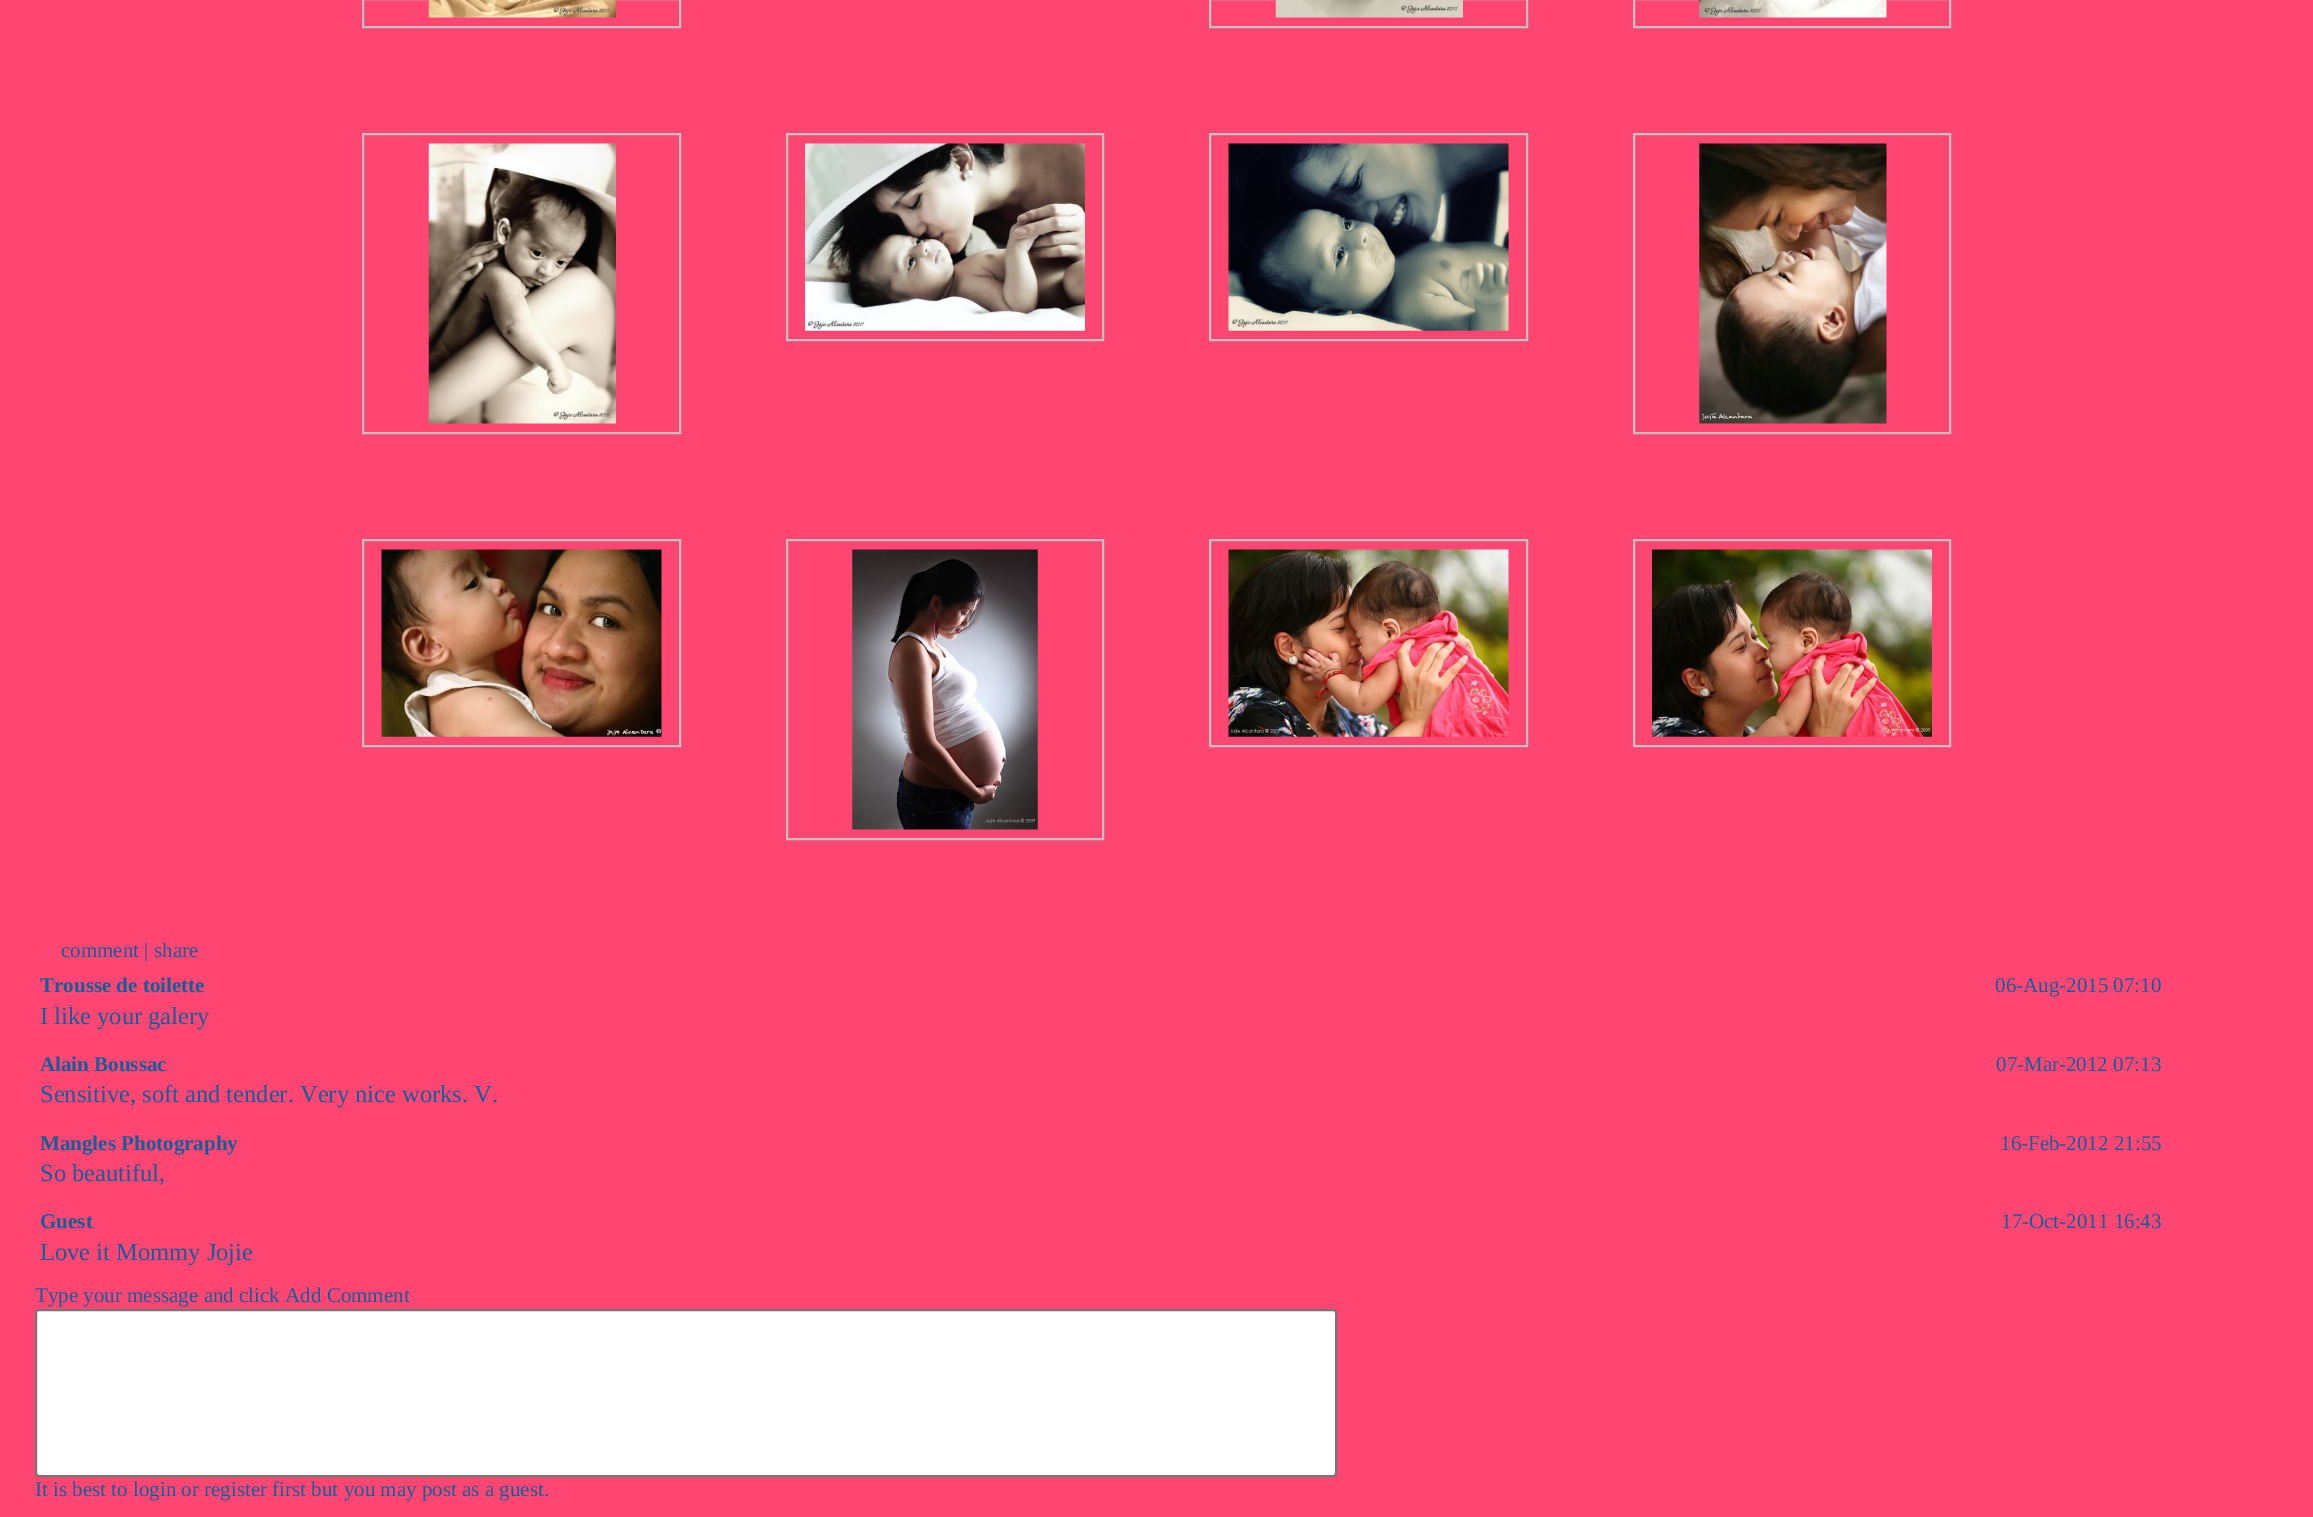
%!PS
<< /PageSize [2313 1517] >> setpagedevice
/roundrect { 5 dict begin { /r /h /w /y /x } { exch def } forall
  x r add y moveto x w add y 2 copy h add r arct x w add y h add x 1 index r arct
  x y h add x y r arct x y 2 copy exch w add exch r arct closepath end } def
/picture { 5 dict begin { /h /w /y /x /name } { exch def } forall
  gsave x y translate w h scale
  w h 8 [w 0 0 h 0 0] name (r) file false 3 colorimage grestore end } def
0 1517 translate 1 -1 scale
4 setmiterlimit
1 0.271 0.443 setrgbcolor
0 0 2313 1517 rectfill
0.753 setgray
2 setlinewidth
363 -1 317 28 rectstroke
(img1.rgb) 428 0 188 18 picture
1210 -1 317 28 rectstroke
(img2.rgb) 1275 0 188 18 picture
1634 -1 316 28 rectstroke
(img3.rgb) 1699 0 188 18 picture
363 134 317 299 rectstroke
(img4.rgb) 428 143 188 281 picture
787 134 316 206 rectstroke
(img5.rgb) 805 143 280 188 picture
1210 134 317 206 rectstroke
(img6.rgb) 1228 143 281 188 picture
1634 134 316 299 rectstroke
(img7.rgb) 1699 143 188 281 picture
363 540 317 206 rectstroke
(img8.rgb) 381 549 281 188 picture
787 540 316 299 rectstroke
(img9.rgb) 852 549 186 281 picture
1210 540 317 206 rectstroke
(img10.rgb) 1228 549 281 188 picture
1634 540 316 206 rectstroke
(img11.rgb) 1652 549 280 188 picture
/LiberationSerif-Regular [21 0 0 -21 0 0] selectfont
0.063 0.376 0.608 setrgbcolor
61 957 moveto (comment | share) show
/LiberationSerif-Bold [21 0 0 -21 0 0] selectfont
40 992 moveto (Trousse de toilette) show
/LiberationSerif-Regular [21 0 0 -21 0 0] selectfont
1995 992 moveto (06-Aug-2015 07:10) show
/LiberationSerif-Regular [24.5 0 0 -24.5 0 0] selectfont
40 1024 moveto (I like your galery) show
/LiberationSerif-Bold [21 0 0 -21 0 0] selectfont
40 1071 moveto (Alain Boussac) show
/LiberationSerif-Regular [21 0 0 -21 0 0] selectfont
1996 1071 moveto (07-Mar-2012 07:13) show
/LiberationSerif-Regular [24.5 0 0 -24.5 0 0] selectfont
40 1102 moveto (Sensitive, soft and tender. Very nice works. V.) show
/LiberationSerif-Bold [21 0 0 -21 0 0] selectfont
40 1150 moveto (Mangles Photography) show
/LiberationSerif-Regular [21 0 0 -21 0 0] selectfont
2000 1150 moveto (16-Feb-2012 21:55) show
/LiberationSerif-Regular [24.5 0 0 -24.5 0 0] selectfont
40 1181 moveto (So beautiful,) show
/LiberationSerif-Bold [21 0 0 -21 0 0] selectfont
40 1228 moveto (Guest) show
/LiberationSerif-Regular [21 0 0 -21 0 0] selectfont
2001 1228 moveto (17-Oct-2011 16:43) show
/LiberationSerif-Regular [24.5 0 0 -24.5 0 0] selectfont
40 1260 moveto (Love it Mommy Jojie) show
/LiberationSerif-Regular [21 0 0 -21 0 0] selectfont
35 1302 moveto (Type your message and click Add Comment) show
1 setgray
36 1310 1300 166 3 roundrect gsave fill grestore
0.463 setgray
stroke
0.063 0.376 0.608 setrgbcolor
35 1496 moveto (It is best to login or register first but you may post as a guest.) show
showpage
